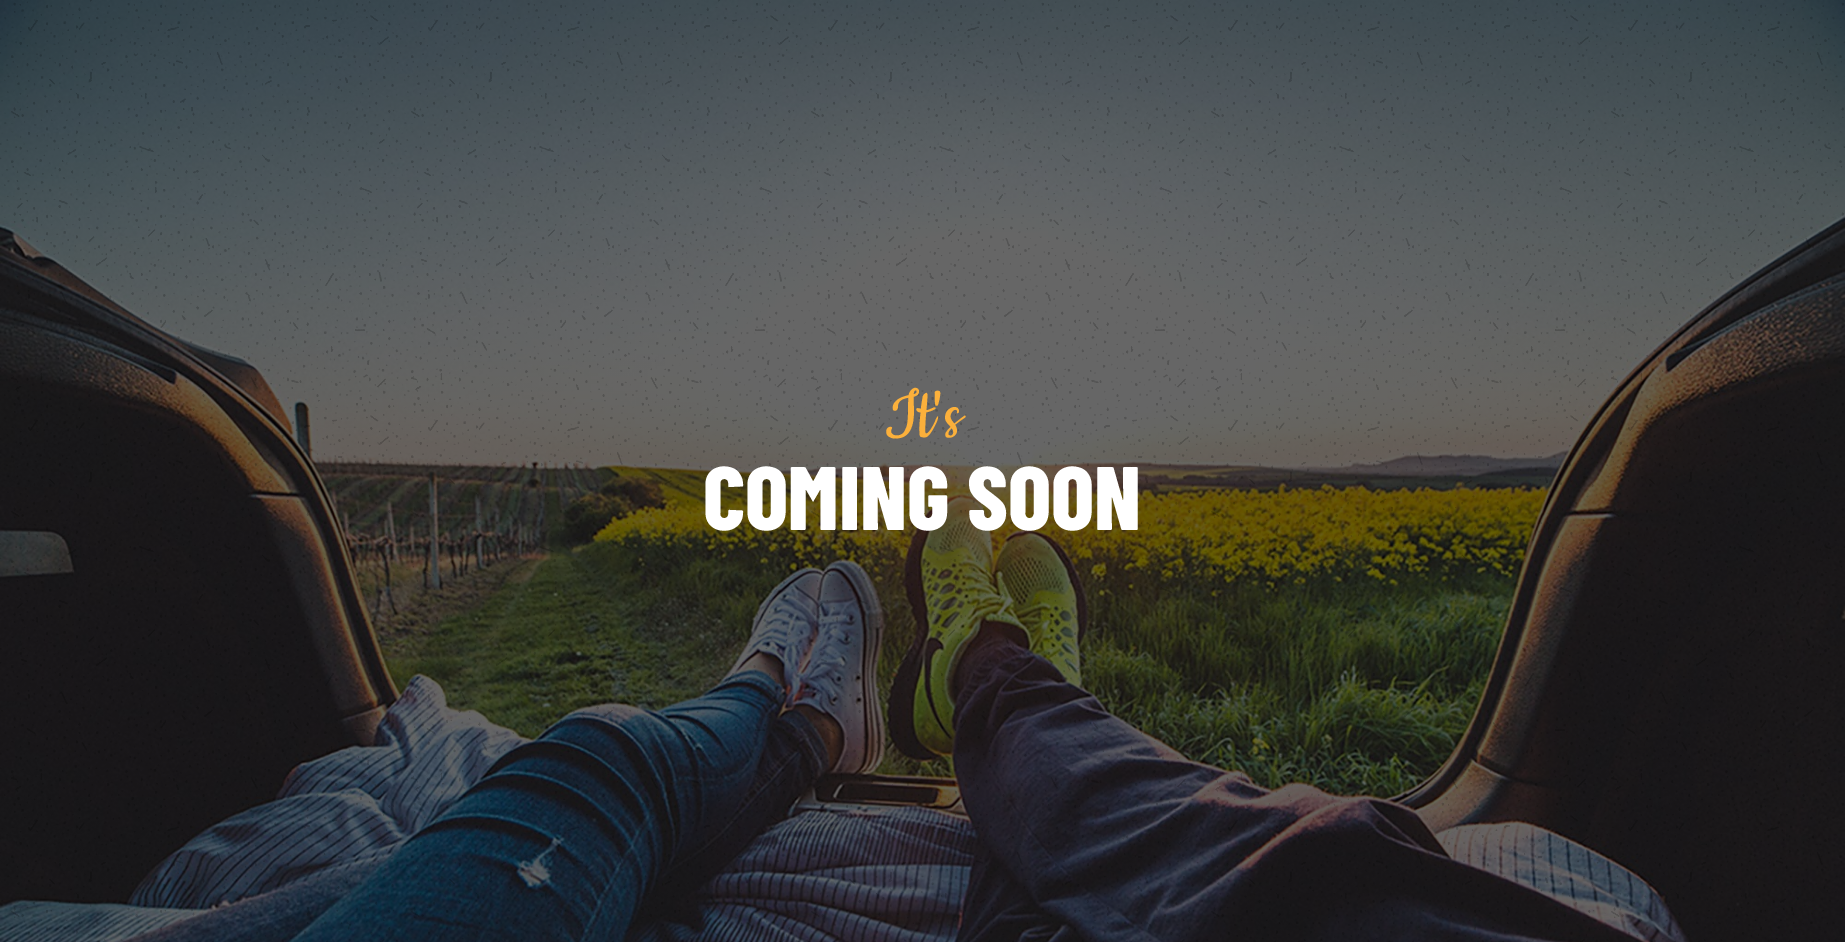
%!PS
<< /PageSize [1845 942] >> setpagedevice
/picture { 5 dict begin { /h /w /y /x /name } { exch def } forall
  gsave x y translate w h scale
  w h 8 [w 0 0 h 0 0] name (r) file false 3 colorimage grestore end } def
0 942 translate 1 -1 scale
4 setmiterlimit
1 setgray
0 0 1845 942 rectfill
(img1.rgb) 0 0 1845 942 picture
/Cookie-Regular [80 0 0 -80 0 0] selectfont
0.984 0.69 0.231 setrgbcolor
884 437 moveto (It's) show
/BarlowCondensed-ExtraBold [90 0 0 -90 0 0] selectfont
1 setgray
703 530 moveto (COMING SOON) show
showpage
